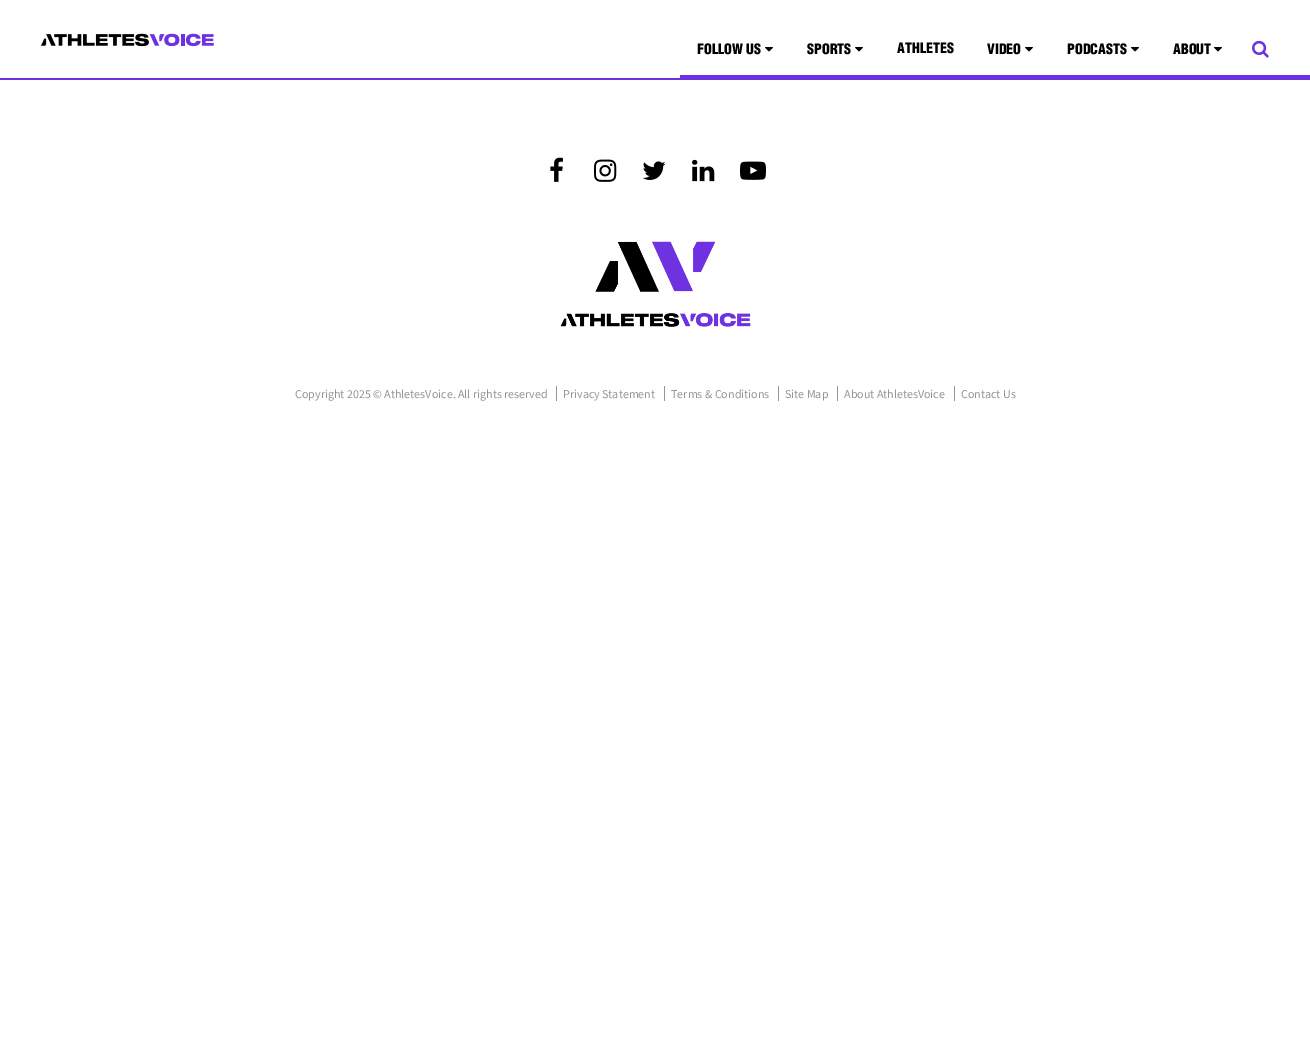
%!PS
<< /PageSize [1310 1044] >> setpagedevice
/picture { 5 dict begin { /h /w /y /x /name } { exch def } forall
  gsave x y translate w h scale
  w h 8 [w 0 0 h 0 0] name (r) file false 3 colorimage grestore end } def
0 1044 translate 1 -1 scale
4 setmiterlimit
1 setgray
0 0 1310 1044 rectfill
0.427 0.192 0.878 setrgbcolor
0 78 680 2 rectfill
(img1.rgb) 41 33 173 14 picture
680 75 559 5 rectfill
/Helvetica-Black [14 0 0 -14 0 0] selectfont
0 setgray
697 54 moveto (FOLLOW US) show
(img2.rgb) 765 47 8 5 picture
807 54 moveto (SPORTS) show
(img2.rgb) 855 47 8 5 picture
897 53 moveto (ATHLETES) show
987 54 moveto (VIDEO) show
(img2.rgb) 1025 47 8 5 picture
1067 54 moveto (PODCASTS) show
(img2.rgb) 1131 47 8 5 picture
1173 54 moveto (ABOUT) show
(img2.rgb) 1214 47 8 5 picture
0.427 0.192 0.878 setrgbcolor
1239 75 71 5 rectfill
(img3.rgb) 1252 40 17 18 picture
(img4.rgb) 550 157 13 25 picture
(img5.rgb) 594 159 23 23 picture
(img6.rgb) 642 161 24 19 picture
(img7.rgb) 692 159 23 23 picture
(img8.rgb) 740 161 26 19 picture
(img9.rgb) 560 241 191 86 picture
/SourceSansPro-Regular [12 0 0 -12 0 0] selectfont
0.576 0.584 0.596 setrgbcolor
295 398 moveto (Copyright 2025 © AthletesVoice. All rights reserved) show
563 398 moveto (Privacy Statement) show
556 386 1 15 rectfill
671 398 moveto (Terms & Conditions) show
664 386 1 15 rectfill
785 398 moveto (Site Map) show
778 386 1 15 rectfill
844 398 moveto (About AthletesVoice) show
837 386 1 15 rectfill
961 398 moveto (Contact Us) show
954 386 1 15 rectfill
showpage
